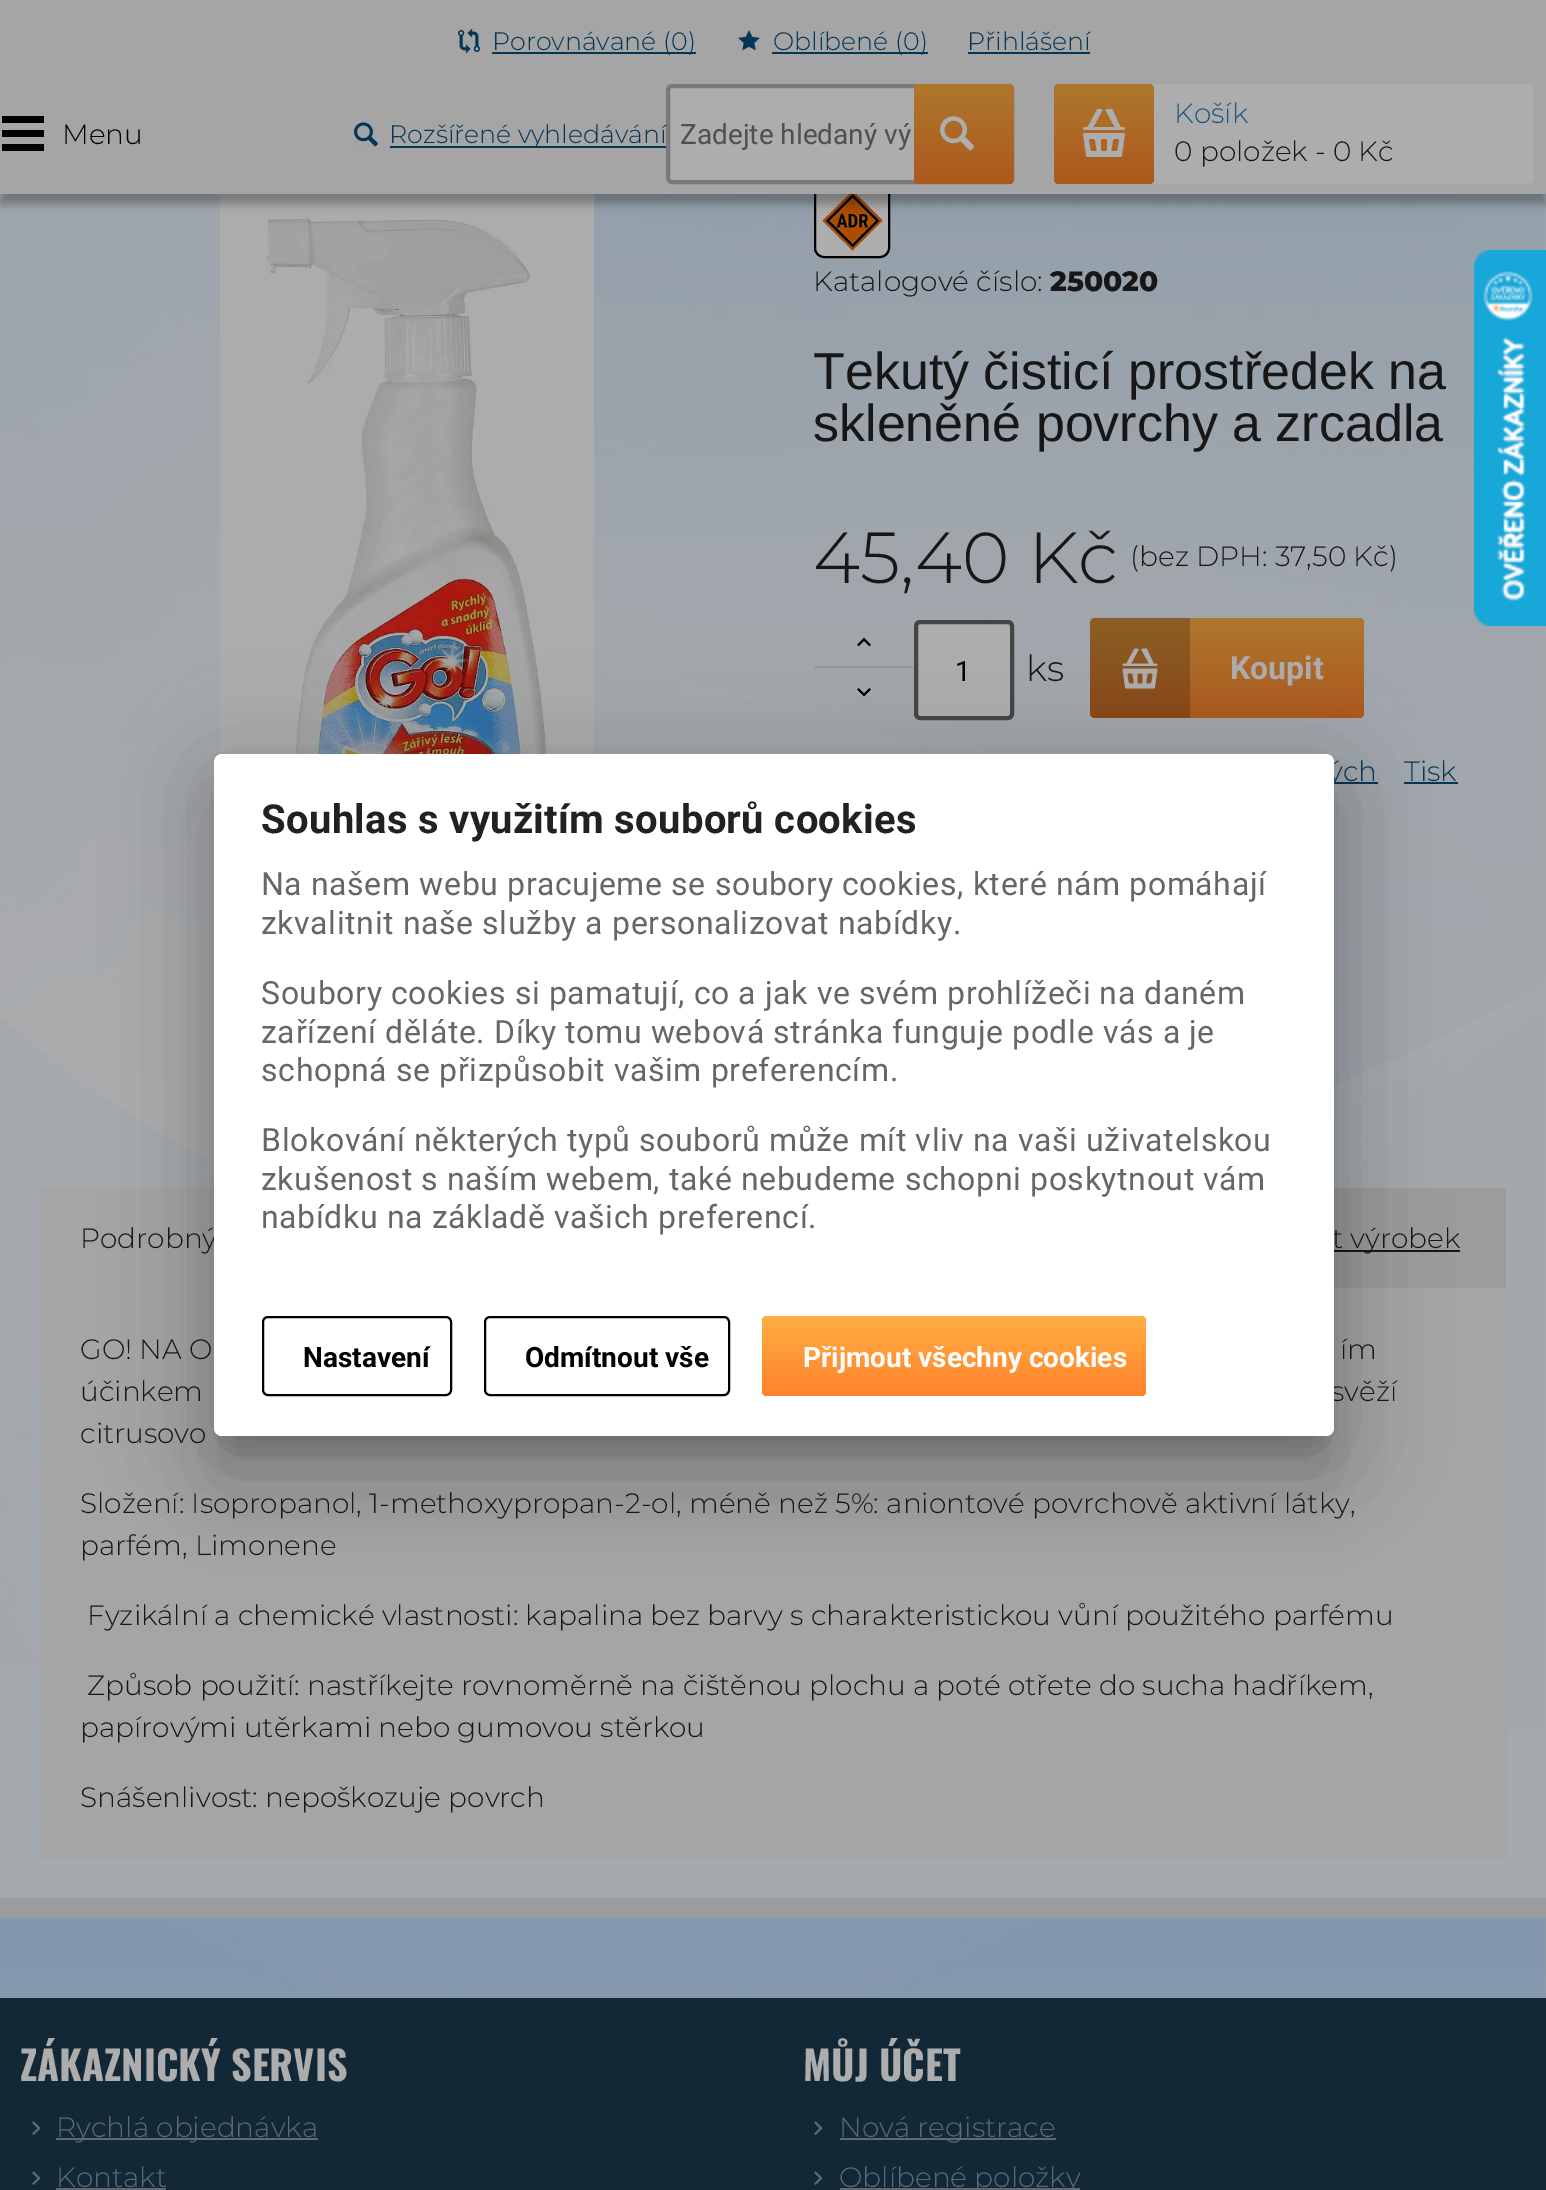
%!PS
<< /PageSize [1546 2190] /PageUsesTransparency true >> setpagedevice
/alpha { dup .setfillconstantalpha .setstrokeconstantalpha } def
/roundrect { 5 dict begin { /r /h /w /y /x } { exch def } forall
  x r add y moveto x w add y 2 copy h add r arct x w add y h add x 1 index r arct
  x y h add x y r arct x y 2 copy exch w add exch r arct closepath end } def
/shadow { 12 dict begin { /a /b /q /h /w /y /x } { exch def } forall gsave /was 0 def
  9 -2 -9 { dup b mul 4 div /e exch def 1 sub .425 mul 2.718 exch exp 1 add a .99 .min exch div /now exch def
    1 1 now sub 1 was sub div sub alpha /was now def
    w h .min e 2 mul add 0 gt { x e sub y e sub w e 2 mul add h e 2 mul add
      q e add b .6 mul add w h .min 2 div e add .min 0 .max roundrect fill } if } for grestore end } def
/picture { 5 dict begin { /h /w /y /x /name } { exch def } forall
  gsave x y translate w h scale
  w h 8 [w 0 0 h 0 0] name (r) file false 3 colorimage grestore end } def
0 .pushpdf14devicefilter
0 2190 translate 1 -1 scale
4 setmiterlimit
0.612 setgray
0 0 1546 2190 rectfill
(img1.rgb) 0 194 1546 1804 picture
0.647 setgray
0 0 1546 80 rectfill
(img2.rgb) 458 28 22 26 picture
0.02 0.212 0.337 setrgbcolor
492 52 204 2 rectfill
/Montserrat-Light [25.25 0 0 -25.25 0 0] selectfont
492 50 moveto (Porovnávané \(0\)) show
(img3.rgb) 738 30 22 21 picture
772 52 156 2 rectfill
773 50 moveto (Oblíbené \(0\)) show
967 50 moveto (Přihlášení) show
968 52 122 2 rectfill
0.8 alpha
0.678 setgray
0 194 1546 1704 rectfill
1 alpha
(img7.rgb) 220 194 374 561 picture
815 183 74 74 9 roundrect gsave fill grestore
0 setgray
2 setlinewidth
stroke
(img8.rgb) 822 194 61 57 picture
0 90 1546 114 0 5 0.3 shadow
0.647 setgray
0 80 1546 114 rectfill
0 setgray
newpath 2 116 moveto 2 123 lineto 44 123 lineto 44 116 lineto closepath 2 137 moveto 44 137 lineto 44 130 lineto 2 130 lineto closepath 2 151 moveto 44 151 lineto 44 144 lineto 2 144 lineto closepath fill
/Montserrat-Light [28 0 0 -28 0 0] selectfont
62 144 moveto (Menu) show
(img4.rgb) 354 122 24 25 picture
0.02 0.212 0.337 setrgbcolor
390 146 276 2 rectfill
0.678 setgray
668 86 344 96 4 roundrect gsave fill grestore
0.475 setgray
4 setlinewidth
stroke
/Montserrat-Light [25.25 0 0 -25.25 0 0] selectfont
0.02 0.212 0.337 setrgbcolor
389 143 moveto (Rozšířené vyhledávání) show
/Roboto-Regular [28 0 0 -28 0 0] selectfont
0.314 setgray
680 144 moveto (Zadejte hledaný vý) show
gsave 914 84 100 100 6 roundrect clip newpath
<< /ShadingType 2 /ColorSpace /DeviceRGB /Coords [964 184 964 84] /Extend [true true] /Function << /FunctionType 2 /Domain [0 1] /C0 [0.678 0.345 0.118] /C1 [0.678 0.467 0.18] /N 1 >> >> shfill grestore
(img5.rgb) 940 116 35 35 picture
0.678 setgray
1054 84 480 100 6 roundrect fill
gsave 1054 84 100 100 6 roundrect clip newpath
<< /ShadingType 2 /ColorSpace /DeviceRGB /Coords [1104 184 1104 84] /Extend [true true] /Function << /FunctionType 2 /Domain [0 1] /C0 [0.678 0.345 0.118] /C1 [0.678 0.467 0.18] /N 1 >> >> shfill grestore
(img6.rgb) 1083 109 42 48 picture
/Montserrat-Light [28 0 0 -28 0 0] selectfont
0.11 0.341 0.494 setrgbcolor
1174 123 moveto (Košík) show
0.09 setgray
1174 161 moveto (0 položek - 0 Kč) show
0.612 setgray
0 1898 1546 20 rectfill
0.09 setgray
813 291 moveto (Katalogové číslo:) show
/Montserrat-ExtraBold [28 0 0 -28 0 0] selectfont
1050 291 moveto (250020) show
/LiberationSans-Regular [52 0 0 -52 0 0] selectfont
813 389 moveto (Tekutý čisticí prostředek na) show
813 441 moveto (skleněné povrchy a zrcadla) show
/Montserrat-Light [72 0 0 -72 0 0] selectfont
813 583 moveto (45,40 Kč) show
/Montserrat-Light [28 0 0 -28 0 0] selectfont
1130 566 moveto (\(bez DPH: 37,50 Kč\)) show
0.596 0.604 0.604 setrgbcolor
814 666 100 2 rectfill
(img9.rgb) 857 637 14 10 picture
(img10.rgb) 857 688 14 9 picture
0.678 setgray
916 622 96 96 4 roundrect gsave fill grestore
0.271 setgray
stroke
/Roboto-Regular [28 0 0 -28 0 0] selectfont
0 setgray
955 681 moveto (1) show
/Montserrat-Light [36 0 0 -36 0 0] selectfont
0.09 setgray
1026 681 moveto (ks) show
gsave 1090 618 274 100 6 roundrect clip newpath
<< /ShadingType 2 /ColorSpace /DeviceRGB /Coords [1227 718 1227 618] /Extend [true true] /Function << /FunctionType 2 /Domain [0 1] /C0 [0.678 0.345 0.118] /C1 [0.678 0.467 0.18] /N 1 >> >> shfill grestore
0.2 alpha
0 setgray
newpath 1096 618 moveto 1190 618 lineto 1190 718 lineto 1096 718 lineto 1092.5 718 1090 715.5 1090 712 curveto 1090 624 lineto 1090 620.5 1092.5 618 1096 618 curveto closepath fill
1 alpha
(img11.rgb) 1122 648 36 41 picture
/Roboto-Bold [32 0 0 -32 0 0] selectfont
0.678 setgray
1230 679 moveto (Koupit) show
0.02 0.212 0.337 setrgbcolor
1334 782 44 2 rectfill
/Montserrat-Light [28 0 0 -28 0 0] selectfont
1328 781 moveto (ých) show
1404 781 moveto (Tisk) show
1404 782 54 2 rectfill
0.647 setgray
40 1188 174 100 rectfill
0.09 setgray
80 1248 moveto (Podrobný) show
0.612 setgray
1334 1188 172 100 rectfill
0.09 setgray
1334 1250 126 2 rectfill
1332 1248 moveto (t výrobek) show
0.647 setgray
40 1288 1466 570 rectfill
0.09 setgray
80 1359 moveto (GO! NA O) show
1340 1359 moveto (ím) show
80 1401 moveto (účinkem) show
1331 1401 moveto (svěží) show
80 1443 moveto (citrusovo) show
80 1513 moveto (Složení: Isopropanol, 1-methoxypropan-2-ol, méně než 5%: aniontové povrchově aktivní látky,) show
80 1555 moveto (parfém, Limonene) show
87 1625 moveto (Fyzikální a chemické vlastnosti: kapalina bez barvy s charakteristickou vůní použitého parfému) show
87 1695 moveto (Způsob použití: nastříkejte rovnoměrně na čištěnou plochu a poté otřete do sucha hadříkem,) show
80 1737 moveto (papírovými utěrkami nebo gumovou stěrkou) show
80 1807 moveto (Snášenlivost: nepoškozuje povrch) show
0.071 0.157 0.216 setrgbcolor
0 1998 1546 192 rectfill
/Oswald-Bold [40 0 0 -40 0 0] selectfont
0.678 setgray
20 2081 moveto (ZÁKAZNICKÝ SERVIS) show
(img12.rgb) 32 2121 9 14 picture
0.369 0.412 0.443 setrgbcolor
56 2138 262 2 rectfill
/Montserrat-Light [28 0 0 -28 0 0] selectfont
56 2137 moveto (Rychlá objednávka) show
(img12.rgb) 32 2171 9 14 picture
56 2187 moveto (Kontakt) show
56 2188 110 2 rectfill
/Oswald-Bold [40 0 0 -40 0 0] selectfont
0.678 setgray
803 2081 moveto (MŮJ ÚČET) show
(img12.rgb) 814 2121 9 14 picture
0.369 0.412 0.443 setrgbcolor
840 2138 216 2 rectfill
/Montserrat-Light [28 0 0 -28 0 0] selectfont
839 2137 moveto (Nová registrace) show
(img12.rgb) 814 2171 9 14 picture
840 2188 240 2 rectfill
839 2187 moveto (Oblíbené položky) show
0 setgray
198 756 1152 714 24 46 0.12 shadow
(img13.rgb) 1474 250 72 376 picture
208 796 1132 694 14 38 0.14 shadow
228 790 1092 654 0 15 0.2 shadow
1 setgray
214 754 1120 682 8 roundrect fill
/Roboto-Bold [40 0 0 -40 0 0] selectfont
0.129 setgray
261 833 moveto 0.3 0 (Souhlas s využitím souborů cookies) ashow
/Roboto-Regular [32 0 0 -32 0 0] selectfont
0.4 setgray
261 895 moveto 0.62 0 (Na našem webu pracujeme se soubory cookies, které nám pomáhají) ashow
261 934 moveto 0.62 0 (zkvalitnit naše služby a personalizovat nabídky.) ashow
261 1004 moveto 0.62 0 (Soubory cookies si pamatují, co a jak ve svém prohlížeči na daném) ashow
261 1043 moveto 0.62 0 (zařízení děláte. Díky tomu webová stránka funguje podle vás a je) ashow
261 1081 moveto 0.62 0 (schopná se přizpůsobit vašim preferencím.) ashow
261 1151 moveto 0.62 0 (Blokování některých typů souborů může mít vliv na vaši uživatelskou) ashow
261 1190 moveto 0.62 0 (zkušenost s naším webem, také nebudeme schopni poskytnout vám) ashow
261 1228 moveto 0.62 0 (nabídku na základě vašich preferencí.) ashow
0 setgray
2 setlinewidth
263 1317 188 78 5 roundrect stroke
/Roboto-Bold [28 0 0 -28 0 0] selectfont
303 1367 moveto (Nastavení) show
485 1317 244 78 5 roundrect stroke
525 1367 moveto (Odmítnout vše) show
gsave 762 1316 384 80 6 roundrect clip newpath
<< /ShadingType 2 /ColorSpace /DeviceRGB /Coords [954 1396 954 1316] /Extend [true true] /Function << /FunctionType 2 /Domain [0 1] /C0 [1 0.51 0.173] /C1 [1 0.686 0.263] /N 1 >> >> shfill grestore
1 setgray
803 1367 moveto (Přijmout všechny cookies) show
.poppdf14devicefilter showpage
